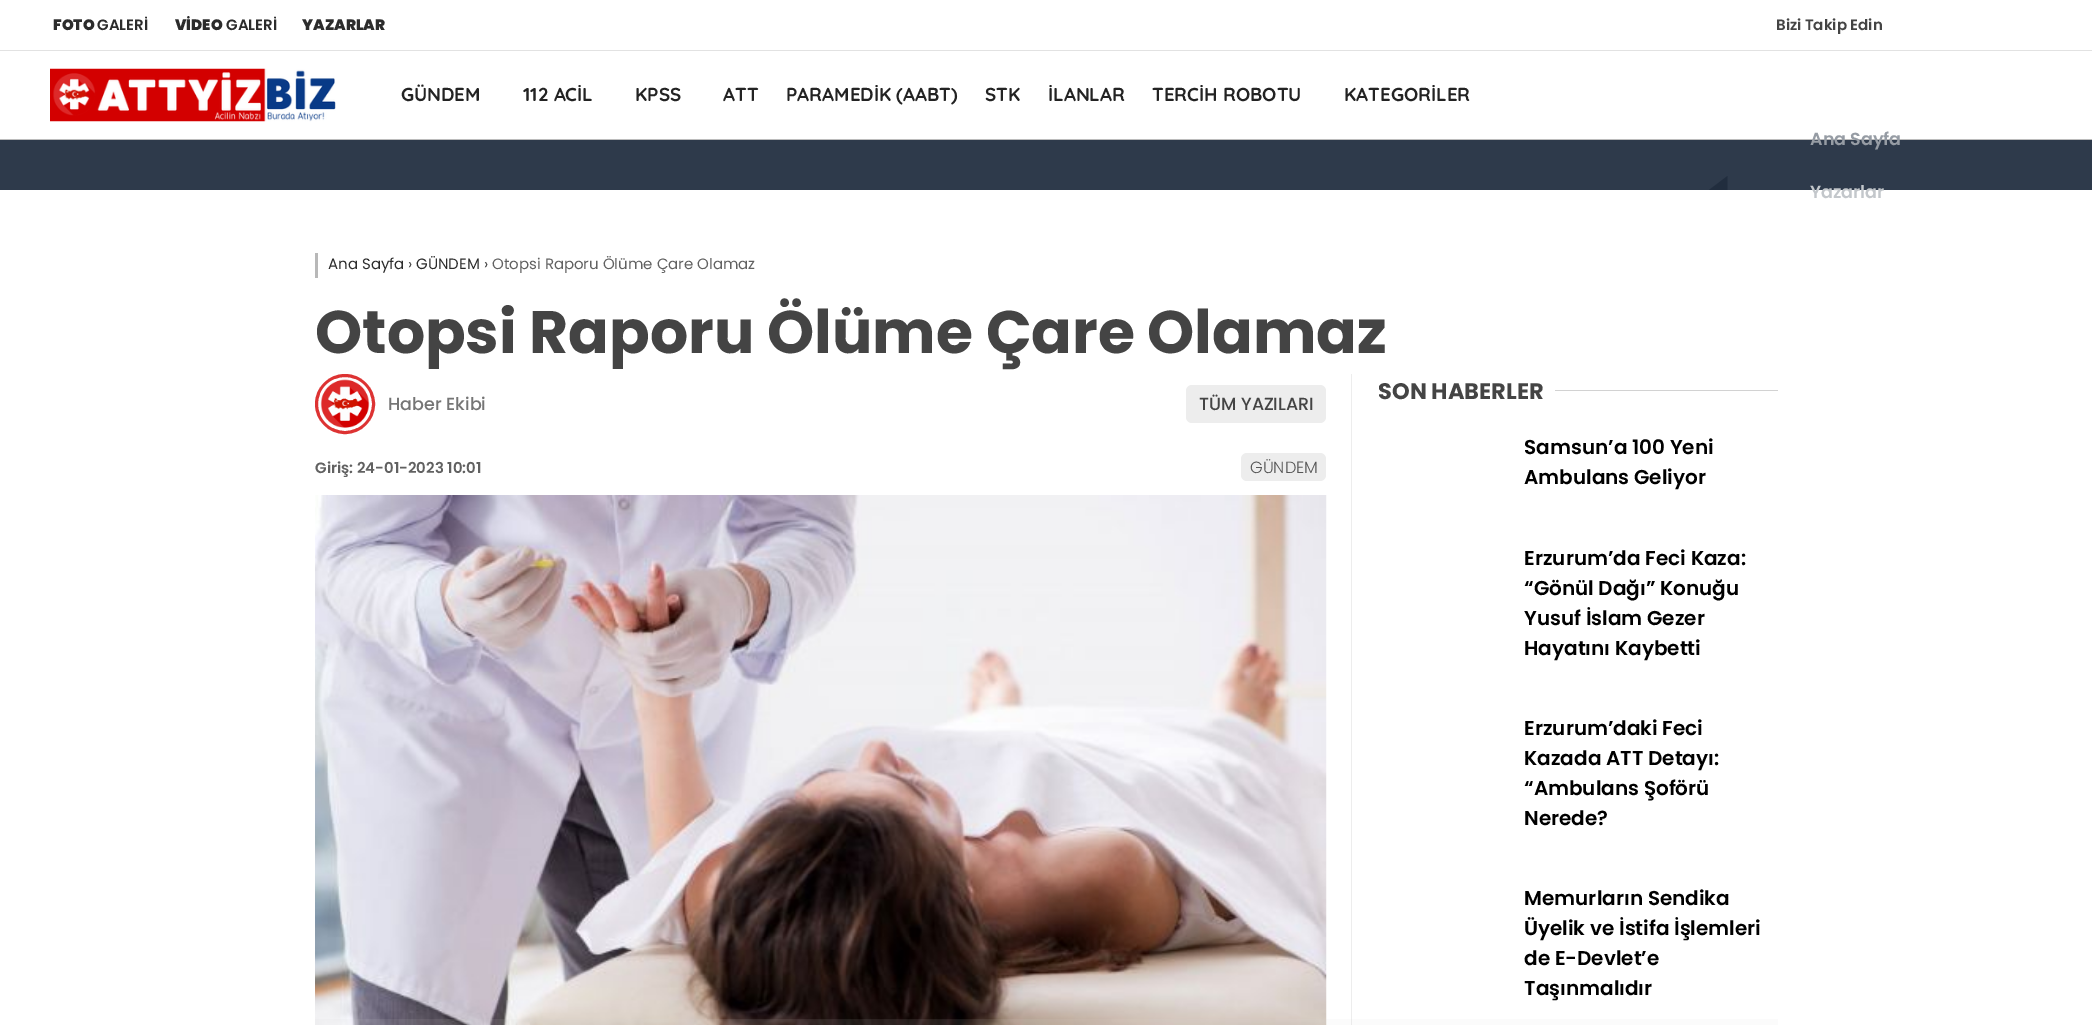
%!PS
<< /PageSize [2092 1025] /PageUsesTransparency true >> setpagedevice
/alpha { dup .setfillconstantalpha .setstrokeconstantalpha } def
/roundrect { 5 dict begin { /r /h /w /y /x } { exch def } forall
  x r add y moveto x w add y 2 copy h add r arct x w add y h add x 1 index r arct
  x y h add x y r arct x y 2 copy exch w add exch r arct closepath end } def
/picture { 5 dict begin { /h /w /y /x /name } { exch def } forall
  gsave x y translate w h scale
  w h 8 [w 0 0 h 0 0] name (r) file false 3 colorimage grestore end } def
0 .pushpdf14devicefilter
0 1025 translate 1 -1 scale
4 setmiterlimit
1 setgray
0 0 2092 1025 rectfill
0.886 setgray
0 50 2092 1 rectfill
/Poppins-Black [15 0 0 -15 0 0] selectfont
0.173 setgray
53 30 moveto (FOTO) show
/Poppins-SemiBold [15 0 0 -15 0 0] selectfont
97 30 moveto (GALERİ) show
/Poppins-Black [15 0 0 -15 0 0] selectfont
175 30 moveto (VİDEO) show
/Poppins-SemiBold [15 0 0 -15 0 0] selectfont
226 30 moveto (GALERİ) show
/Poppins-Black [15 0 0 -15 0 0] selectfont
302 30 moveto (YAZARLAR) show
/Poppins-SemiBold [15 0 0 -15 0 0] selectfont
0.267 setgray
1776 30 moveto (Bizi Takip Edin) show
0.737 setgray
0 139 2092 1 rectfill
(img1.rgb) 50 68 286 54 picture
/Quicksand-Bold [18.75 0 0 -18.75 0 0] selectfont
0.137 setgray
401 101 moveto (GÜNDEM) show
523 101 moveto (112 ACİL) show
635 101 moveto (KPSS) show
723 101 moveto (ATT) show
786 101 moveto (PARAMEDİK \(AABT\)) show
985 101 moveto (STK) show
1048 101 moveto (İLANLAR) show
1152 101 moveto (TERCİH ROBOTU) show
1344 101 moveto (KATEGORİLER) show
0.18 0.227 0.294 setrgbcolor
0 140 2092 50 rectfill
0.129 0.176 0.243 setrgbcolor
newpath 1727.5 190 moveto 1709 190 lineto 1727.5 176 lineto closepath fill
0.722 setgray
315 253 3 25 rectfill
/Poppins-Regular [15 0 0 -15 0 0] selectfont
0.173 setgray
328 269 moveto (Ana Sayfa) show
0.267 setgray
408 269 moveto (›) show
0.173 setgray
416 269 moveto (GÜNDEM) show
0.267 setgray
484 269 moveto (›) show
0.38 setgray
492 269 moveto (Otopsi Raporu Ölüme Çare Olamaz) show
/Poppins-Bold [60 0 0 -60 0 0] selectfont
0.267 setgray
315 353 moveto (Otopsi Raporu Ölüme Çare Olamaz) show
0.929 setgray
1351 374 1 651 rectfill
0.867 0.2 0.2 setrgbcolor
3 setlinewidth
newpath 345 404 28.5 0 360 arc closepath stroke
(img2.rgb) 320 379 50 49 picture
/Poppins-Medium [17.5 0 0 -17.5 0 0] selectfont
0.459 setgray
388 410 moveto (Haber Ekibi) show
0.929 setgray
1186 385 140 38 6 roundrect fill
0.267 setgray
1199 410 moveto (TÜM YAZILARI) show
/Poppins-SemiBold [15 0 0 -15 0 0] selectfont
0.38 setgray
315 473 moveto (Giriş: 24-01-2023 10:01) show
0.929 setgray
1241 453 85 28 6 roundrect fill
/Poppins-Light [16.25 0 0 -16.25 0 0] selectfont
0.341 setgray
1250 473 moveto (GÜNDEM) show
(img3.rgb) 315 495 1012 530 picture
/Poppins-Bold [22.5 0 0 -22.5 0 0] selectfont
0.267 setgray
1378 399 moveto (SON HABERLER) show
0.824 setgray
1555 390 223 1 0.5 roundrect fill
/Poppins-SemiBold [20 0 0 -20 0 0] selectfont
0 setgray
1524 454 moveto (Samsun’a 100 Yeni) show
1524 484 moveto (Ambulans Geliyor) show
1524 565 moveto (Erzurum’da Feci Kaza:) show
1524 595 moveto (“Gönül Dağı” Konuğu) show
1524 625 moveto (Yusuf İslam Gezer) show
1524 655 moveto (Hayatını Kaybetti) show
1524 735 moveto (Erzurum’daki Feci) show
1524 765 moveto (Kazada ATT Detayı:) show
1524 795 moveto (“Ambulans Şoförü) show
1524 825 moveto (Nerede?) show
1524 905 moveto (Memurların Sendika) show
1524 935 moveto (Üyelik ve İstifa İşlemleri) show
1524 965 moveto (de E-Devlet’e) show
1524 995 moveto (Taşınmalıdır) show
0.1 alpha
0.835 setgray
315 1019 1463 6 rectfill
/Poppins-SemiBold [17.5 0 0 -17.5 0 0] selectfont
1 alpha
0.588 0.612 0.643 setrgbcolor
1810 145 moveto (Ana Sayfa) show
0.765 0.78 0.796 setrgbcolor
1810 198 moveto (Yazarlar) show
.poppdf14devicefilter showpage
